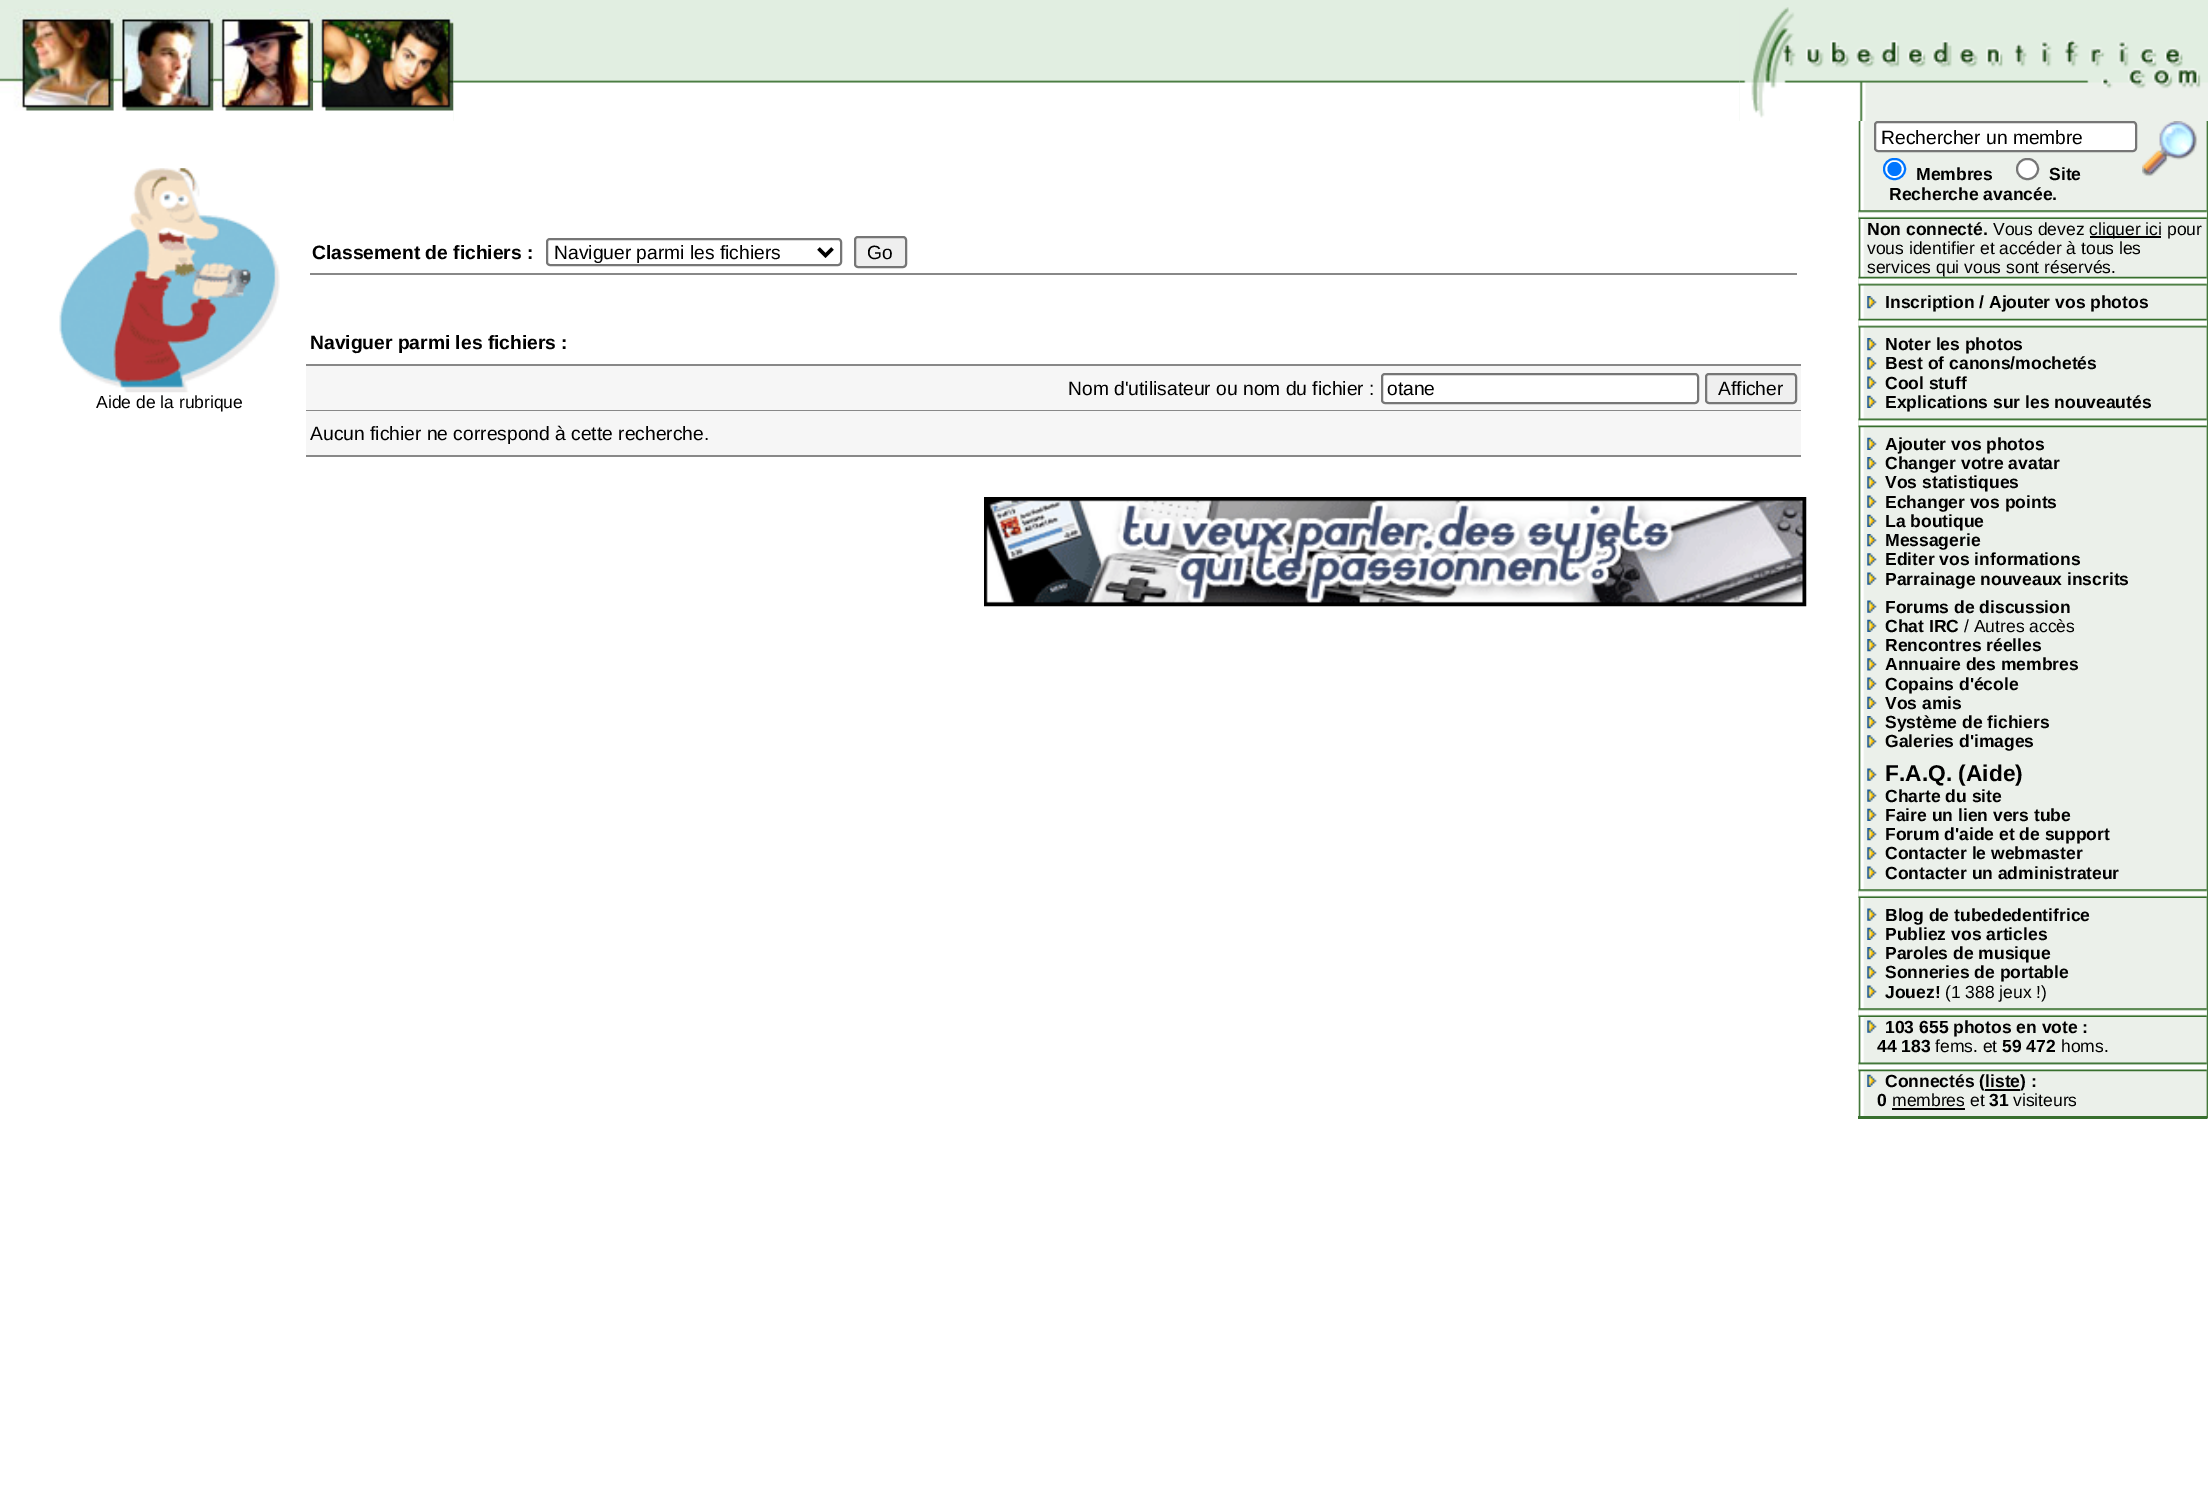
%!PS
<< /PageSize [2208 1485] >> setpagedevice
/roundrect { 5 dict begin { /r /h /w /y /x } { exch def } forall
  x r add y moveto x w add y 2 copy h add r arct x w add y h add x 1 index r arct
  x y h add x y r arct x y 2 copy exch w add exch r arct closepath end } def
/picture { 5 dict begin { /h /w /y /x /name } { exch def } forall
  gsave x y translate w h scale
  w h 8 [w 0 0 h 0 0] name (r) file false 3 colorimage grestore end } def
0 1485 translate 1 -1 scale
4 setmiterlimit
0.882 0.933 0.882 setrgbcolor
0 0 2208 1485 rectfill
(img1.rgb) 0 80 454 41 picture
(img2.rgb) 0 9 114 102 picture
(img3.rgb) 113 9 101 102 picture
(img4.rgb) 213 9 101 102 picture
(img6.rgb) 453 80 1287 41 picture
(img5.rgb) 313 10 141 101 picture
(img7.rgb) 1739 7 469 114 picture
1 setgray
0 121 1859 1364 rectfill
(img8.rgb) 59 168 221 225 picture
/LiberationSans-Regular [17.5 0 0 -17.5 0 0] selectfont
0 setgray
96 408 moveto (Aide de la rubrique) show
/LiberationSans-Bold [19.25 0 0 -19.25 0 0] selectfont
312 259 moveto (Classement de fichiers :) show
0.463 setgray
2 setlinewidth
547 239 294 26 3 roundrect stroke
0 setgray
3.5 setlinewidth
newpath 818.5 248.5 moveto 825.5 255.5 lineto 832.5 248.5 lineto stroke
/LiberationSans-Regular [19.25 0 0 -19.25 0 0] selectfont
554 259 moveto (Naviguer parmi les fichiers) show
0.937 setgray
855 237 51 30 3 roundrect gsave fill grestore
0.463 setgray
2 setlinewidth
stroke
0 setgray
867 259 moveto (Go) show
0.533 setgray
310 273 1487 2 rectfill
/LiberationSans-Bold [19.25 0 0 -19.25 0 0] selectfont
0 setgray
310 349 moveto (Naviguer parmi les fichiers :) show
0.533 setgray
306 364 1495 2 rectfill
0.965 setgray
306 366 1495 44 rectfill
/LiberationSans-Regular [19.25 0 0 -19.25 0 0] selectfont
0 setgray
1068 395 moveto (Nom d'utilisateur ou nom du fichier :) show
1 setgray
1382 374 316 29 3 roundrect gsave fill grestore
0.463 setgray
stroke
0 setgray
1387 395 moveto (otane) show
0.937 setgray
1706 374 90 29 3 roundrect gsave fill grestore
0.463 setgray
stroke
0 setgray
1718 395 moveto (Afficher) show
0.533 setgray
306 410 1495 1 rectfill
0.965 setgray
306 411 1495 44 rectfill
0 setgray
310 440 moveto (Aucun fichier ne correspond à cette recherche.) show
0.533 setgray
306 455 1495 2 rectfill
0 setgray
985 498 820 107 rectstroke
(img9.rgb) 986 499 818 105 picture
1 setgray
1859 1118 349 367 rectfill
(img10.rgb) 1858 121 350 998 picture
1875 122 261 29 3 roundrect gsave fill grestore
0.463 setgray
stroke
0 setgray
1881 144 moveto (Rechercher un membre) show
1 setgray
1884 159 21 20 10 roundrect gsave fill grestore
0 0.459 1 setrgbcolor
stroke
newpath 1894.5 169 7 0 360 arc closepath fill
/LiberationSans-Bold [17.5 0 0 -17.5 0 0] selectfont
0 setgray
1916 180 moveto (Membres) show
1 setgray
2017 159 21 20 10 roundrect gsave fill grestore
0.463 setgray
stroke
0 setgray
2049 180 moveto (Site) show
1889 200 moveto (Recherche avancée.) show
(img11.rgb) 2142 121 56 56 picture
(img12.rgb) 1858 210 349 9 picture
1867 235 moveto (Non connecté.) show
/LiberationSans-Regular [17.5 0 0 -17.5 0 0] selectfont
1993 235 moveto (Vous devez) show
2090 236 71 2 rectfill
2089 235 moveto (cliquer ici pour) show
1867 254 moveto (vous identifier et accéder à tous les) show
1867 273 moveto (services qui vous sont réservés.) show
(img13.rgb) 1858 276 349 10 picture
(img14.rgb) 1867 296 10 13 picture
/LiberationSans-Bold [17.5 0 0 -17.5 0 0] selectfont
1885 308 moveto (Inscription / Ajouter vos photos) show
(img15.rgb) 1858 318 349 10 picture
(img14.rgb) 1867 338 10 13 picture
1885 350 moveto (Noter les photos) show
(img16.rgb) 1867 357 10 13 picture
1885 369 moveto (Best of canons/mochetés) show
(img17.rgb) 1867 376 10 13 picture
1885 389 moveto (Cool stuff) show
(img18.rgb) 1867 395 10 13 picture
1885 408 moveto (Explications sur les nouveautés) show
(img19.rgb) 1858 418 349 10 picture
(img18.rgb) 1867 437 10 13 picture
1885 450 moveto (Ajouter vos photos) show
(img14.rgb) 1867 457 10 13 picture
1885 469 moveto (Changer votre avatar) show
(img16.rgb) 1867 476 10 13 picture
1885 488 moveto (Vos statistiques) show
(img17.rgb) 1867 495 10 13 picture
1885 508 moveto (Echanger vos points) show
(img18.rgb) 1867 514 10 13 picture
1885 527 moveto (La boutique) show
(img14.rgb) 1867 534 10 13 picture
1885 546 moveto (Messagerie) show
(img16.rgb) 1867 553 10 13 picture
1885 565 moveto (Editer vos informations) show
(img17.rgb) 1867 572 10 13 picture
1885 585 moveto (Parrainage nouveaux inscrits) show
(img17.rgb) 1867 600 10 13 picture
1885 613 moveto (Forums de discussion) show
(img18.rgb) 1867 619 10 13 picture
1885 632 moveto (Chat IRC) show
/LiberationSans-Regular [17.5 0 0 -17.5 0 0] selectfont
1964 632 moveto (/ Autres accès) show
(img14.rgb) 1867 639 10 13 picture
/LiberationSans-Bold [17.5 0 0 -17.5 0 0] selectfont
1885 651 moveto (Rencontres réelles) show
(img16.rgb) 1867 658 10 13 picture
1885 670 moveto (Annuaire des membres) show
(img17.rgb) 1867 677 10 13 picture
1885 690 moveto (Copains d'école) show
(img18.rgb) 1867 696 10 13 picture
1885 709 moveto (Vos amis) show
(img14.rgb) 1867 716 10 13 picture
1885 728 moveto (Système de fichiers) show
(img16.rgb) 1867 735 10 13 picture
1885 747 moveto (Galeries d'images) show
(img17.rgb) 1867 768 10 13 picture
/LiberationSans-Bold [22.75 0 0 -22.75 0 0] selectfont
1885 781 moveto (F.A.Q. \(Aide\)) show
(img17.rgb) 1867 789 10 13 picture
/LiberationSans-Bold [17.5 0 0 -17.5 0 0] selectfont
1885 802 moveto (Charte du site) show
(img18.rgb) 1867 808 10 13 picture
1885 821 moveto (Faire un lien vers tube) show
(img14.rgb) 1867 828 10 13 picture
1885 840 moveto (Forum d'aide et de support) show
(img16.rgb) 1867 847 10 13 picture
1885 859 moveto (Contacter le webmaster) show
(img17.rgb) 1867 866 10 13 picture
1885 879 moveto (Contacter un administrateur) show
(img12.rgb) 1858 889 349 9 picture
(img17.rgb) 1867 908 10 13 picture
1885 921 moveto (Blog de tubededentifrice) show
(img18.rgb) 1867 927 10 13 picture
1885 940 moveto (Publiez vos articles) show
(img14.rgb) 1867 947 10 13 picture
1885 959 moveto (Paroles de musique) show
(img16.rgb) 1867 966 10 13 picture
1885 978 moveto (Sonneries de portable) show
(img17.rgb) 1867 985 10 13 picture
1885 998 moveto (Jouez!) show
/LiberationSans-Regular [17.5 0 0 -17.5 0 0] selectfont
1945 998 moveto (\(1 388 jeux !\)) show
(img12.rgb) 1858 1008 349 9 picture
(img17.rgb) 1867 1020 10 13 picture
/LiberationSans-Bold [17.5 0 0 -17.5 0 0] selectfont
1885 1033 moveto (103 655 photos en vote :) show
1877 1052 moveto (44 183) show
/LiberationSans-Regular [17.5 0 0 -17.5 0 0] selectfont
1935 1052 moveto (fems. et) show
/LiberationSans-Bold [17.5 0 0 -17.5 0 0] selectfont
2002 1052 moveto (59 472) show
/LiberationSans-Regular [17.5 0 0 -17.5 0 0] selectfont
2061 1052 moveto (homs.) show
(img19.rgb) 1858 1062 349 10 picture
(img18.rgb) 1867 1074 10 13 picture
/LiberationSans-Bold [17.5 0 0 -17.5 0 0] selectfont
1885 1087 moveto (Connectés \(liste\) :) show
1985 1089 35 2 rectfill
1877 1106 moveto (0) show
/LiberationSans-Regular [17.5 0 0 -17.5 0 0] selectfont
1892 1106 moveto (membres et) show
1892 1108 73 2 rectfill
/LiberationSans-Bold [17.5 0 0 -17.5 0 0] selectfont
1989 1106 moveto (31) show
/LiberationSans-Regular [17.5 0 0 -17.5 0 0] selectfont
2013 1106 moveto (visiteurs) show
0.216 0.435 0.176 setrgbcolor
1858 1116 349 3 rectfill
showpage
